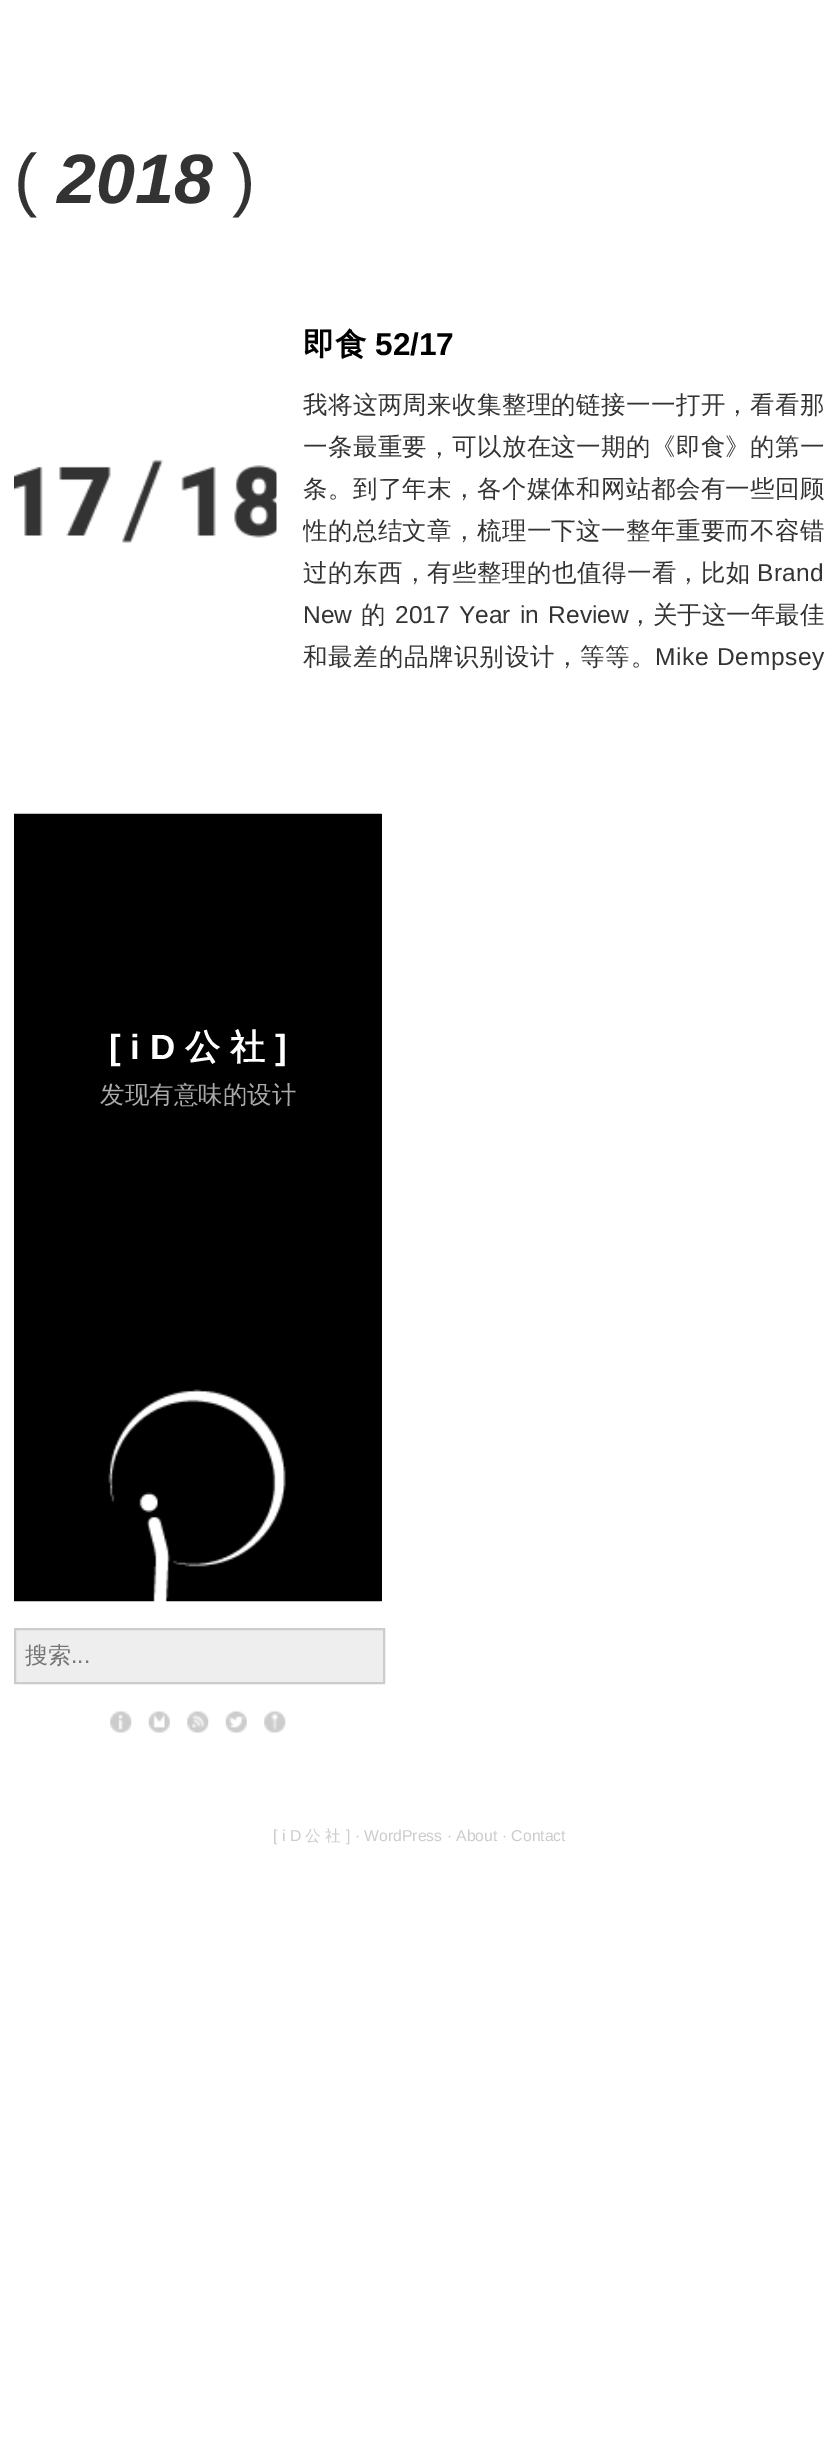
%!PS
<< /PageSize [838 2452] >> setpagedevice
/picture { 5 dict begin { /h /w /y /x /name } { exch def } forall
  gsave x y translate w h scale
  w h 8 [w 0 0 h 0 0] name (r) file false 3 colorimage grestore end } def
0 2452 translate 1 -1 scale
4 setmiterlimit
1 setgray
0 0 838 2452 rectfill
/LiberationSans-Regular [70 0 0 -70 0 0] selectfont
0.2 setgray
14 203 moveto (\() show
/LiberationSans-BoldItalic [70 0 0 -70 0 0] selectfont
57 203 moveto (2018) show
/LiberationSans-Regular [70 0 0 -70 0 0] selectfont
232 203 moveto (\)) show
(img1.rgb) 14 459 263 84 picture
/WenQuanYiZenHei-Bold [31.5 0 0 -31.5 0 0] selectfont
0 setgray
303 355 moveto (即食) show
/LiberationSans-Bold [31.5 0 0 -31.5 0 0] selectfont
375 355 moveto (52/17) show
/WenQuanYiZenHei-Medium [24.5 0 0 -24.5 0 0] selectfont
0.2 setgray
303 413 moveto 0.35 0 (我将这两周来收集整理的链接一一打开，看看那) ashow
303 455 moveto 0.35 0 (一条最重要，可以放在这一期的《即食》的第一) ashow
303 497 moveto 0.35 0 (条。到了年末，各个媒体和网站都会有一些回顾) ashow
gsave
303 324 521 350 rectclip
303 539 moveto 0.35 0 (性的总结文章，梳理一下这一整年重要而不容错) ashow
grestore
303 581 moveto 0.4 0 (过的东西，有些整理的也值得一看，比如) ashow
/LiberationSans-Regular [24.5 0 0 -24.5 0 0] selectfont
757 581 moveto 0.4 0 (Brand) ashow
303 623 moveto (New) show
/WenQuanYiZenHei-Medium [24.5 0 0 -24.5 0 0] selectfont
361 623 moveto (的) show
/LiberationSans-Regular [24.5 0 0 -24.5 0 0] selectfont
395 623 moveto 2.5 0 32 (2017 Year in Review) widthshow
/WenQuanYiZenHei-Medium [24.5 0 0 -24.5 0 0] selectfont
628 623 moveto (，关于这一年最佳) show
303 665 moveto 0.7 0 (和最差的品牌识别设计，等等。) ashow
/LiberationSans-Regular [24.5 0 0 -24.5 0 0] selectfont
655 665 moveto 0.7 0 (Mike Dempsey) ashow
0 setgray
381 814 1 787 rectfill
(img2.rgb) 14 813 368 789 picture
/LiberationSans-Bold [35 0 0 -35 0 0] selectfont
1 setgray
109 1059 moveto ([ i D) show
/WenQuanYiZenHei-Bold [35 0 0 -35 0 0] selectfont
185 1059 moveto (公) show
230 1059 moveto (社) show
/LiberationSans-Bold [35 0 0 -35 0 0] selectfont
275 1059 moveto (]) show
/WenQuanYiZenHei-Medium [24.5 0 0 -24.5 0 0] selectfont
0.667 setgray
100 1103 moveto (发现有意味的设计) show
0.933 setgray
newpath 15 1629 moveto 384 1629 lineto 384 1683 lineto 15 1683 lineto closepath gsave fill grestore
0.8 setgray
2 setlinewidth
stroke
/WenQuanYiZenHei-Medium [23 0 0 -23 0 0] selectfont
0.459 setgray
25 1663 moveto (搜索) show
/LiberationSans-Regular [23 0 0 -23 0 0] selectfont
71 1663 moveto (...) show
(img3.rgb) 110 1711 22 22 picture
(img4.rgb) 148 1711 22 22 picture
(img5.rgb) 187 1711 22 22 picture
(img6.rgb) 225 1711 22 22 picture
(img7.rgb) 264 1711 22 22 picture
/LiberationSans-Regular [15.75 0 0 -15.75 0 0] selectfont
0.8 setgray
273 1841 moveto ([ i D) show
/WenQuanYiZenHei-Medium [15.75 0 0 -15.75 0 0] selectfont
305 1841 moveto (公) show
325 1841 moveto (社) show
/LiberationSans-Regular [15.75 0 0 -15.75 0 0] selectfont
346 1841 moveto (] · WordPress · About · Contact) show
showpage
